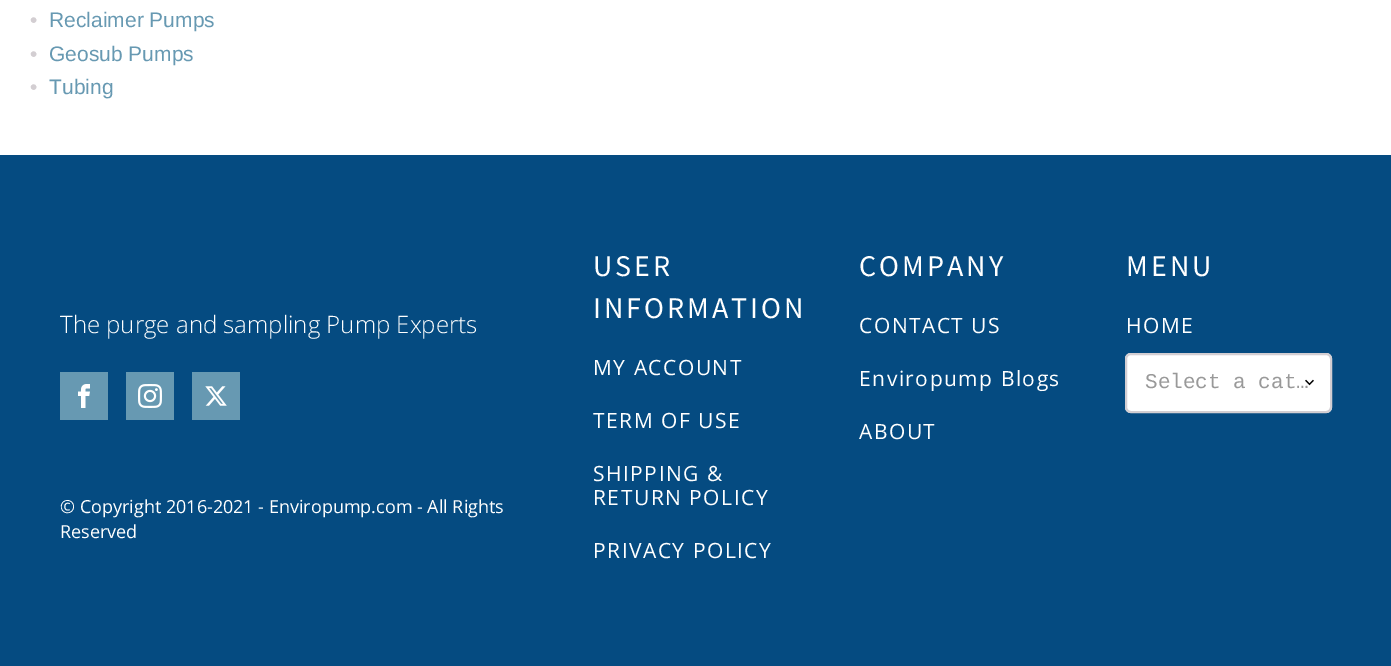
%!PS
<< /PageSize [1391 666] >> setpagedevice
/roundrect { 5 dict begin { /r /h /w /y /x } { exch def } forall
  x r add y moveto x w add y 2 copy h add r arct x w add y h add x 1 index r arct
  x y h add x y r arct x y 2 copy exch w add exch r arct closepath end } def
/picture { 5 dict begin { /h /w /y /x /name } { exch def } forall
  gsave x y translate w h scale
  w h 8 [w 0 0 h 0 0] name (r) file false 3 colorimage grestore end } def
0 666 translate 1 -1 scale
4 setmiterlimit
1 setgray
0 0 1391 666 rectfill
/LiberationSans-Regular [21 0 0 -21 0 0] selectfont
0.827 0.808 0.824 setrgbcolor
30 27 moveto (•) show
0.404 0.6 0.698 setrgbcolor
49 27 moveto (Reclaimer Pumps) show
0.827 0.808 0.824 setrgbcolor
30 61 moveto (•) show
0.404 0.6 0.698 setrgbcolor
49 61 moveto (Geosub Pumps) show
0.827 0.808 0.824 setrgbcolor
30 94 moveto (•) show
0.404 0.6 0.698 setrgbcolor
49 94 moveto (Tubing) show
0.02 0.294 0.506 setrgbcolor
0 155 1391 511 rectfill
/OpenSans-Light [24 0 0 -24 0 0] selectfont
1 setgray
60 333 moveto (The purge and sampling Pump Experts) show
0.404 0.6 0.698 setrgbcolor
60 372 48 48 rectfill
(img1.rgb) 78 384 12 24 picture
126 372 48 48 rectfill
(img2.rgb) 138 384 24 24 picture
192 372 48 48 rectfill
(img3.rgb) 205 386 22 20 picture
/OpenSans-Regular [18 0 0 -18 0 0] selectfont
1 setgray
60 513 moveto (© Copyright 2016-2021 - Enviropump.com - All Rights) show
60 538 moveto (Reserved) show
/SourceSansPro-Regular [30 0 0 -30 0 0] selectfont
593 276 moveto 3 0 (USER) ashow
593 318 moveto 3 0 (INFORMATION) ashow
/OpenSans-Regular [21 0 0 -21 0 0] selectfont
593 375 moveto 1.5 0 (MY ACCOUNT) ashow
593 428 moveto 1.5 0 (TERM OF USE) ashow
593 481 moveto 1.5 0 (SHIPPING &) ashow
593 505 moveto 1.5 0 (RETURN POLICY) ashow
593 558 moveto 1.5 0 (PRIVACY POLICY) ashow
/SourceSansPro-Regular [30 0 0 -30 0 0] selectfont
859 276 moveto 3 0 (COMPANY) ashow
/OpenSans-Regular [21 0 0 -21 0 0] selectfont
859 333 moveto 1.5 0 (CONTACT US) ashow
859 386 moveto 1.5 0 (Enviropump Blogs) ashow
859 439 moveto 1.5 0 (ABOUT) ashow
/SourceSansPro-Regular [30 0 0 -30 0 0] selectfont
1126 276 moveto 3 0 (MENU) ashow
/OpenSans-Regular [21 0 0 -21 0 0] selectfont
1126 333 moveto 1.5 0 (HOME) ashow
1125 353 207 60 6 roundrect fill
(img4.rgb) 1305 379 9 7 picture
0.827 0.808 0.824 setrgbcolor
2 setlinewidth
1126 354 205 58 5 roundrect stroke
/LiberationMono-Regular [21 0 0 -21 0 0] selectfont
0.6 setgray
1145 388 moveto (Select a cat…) show
showpage
